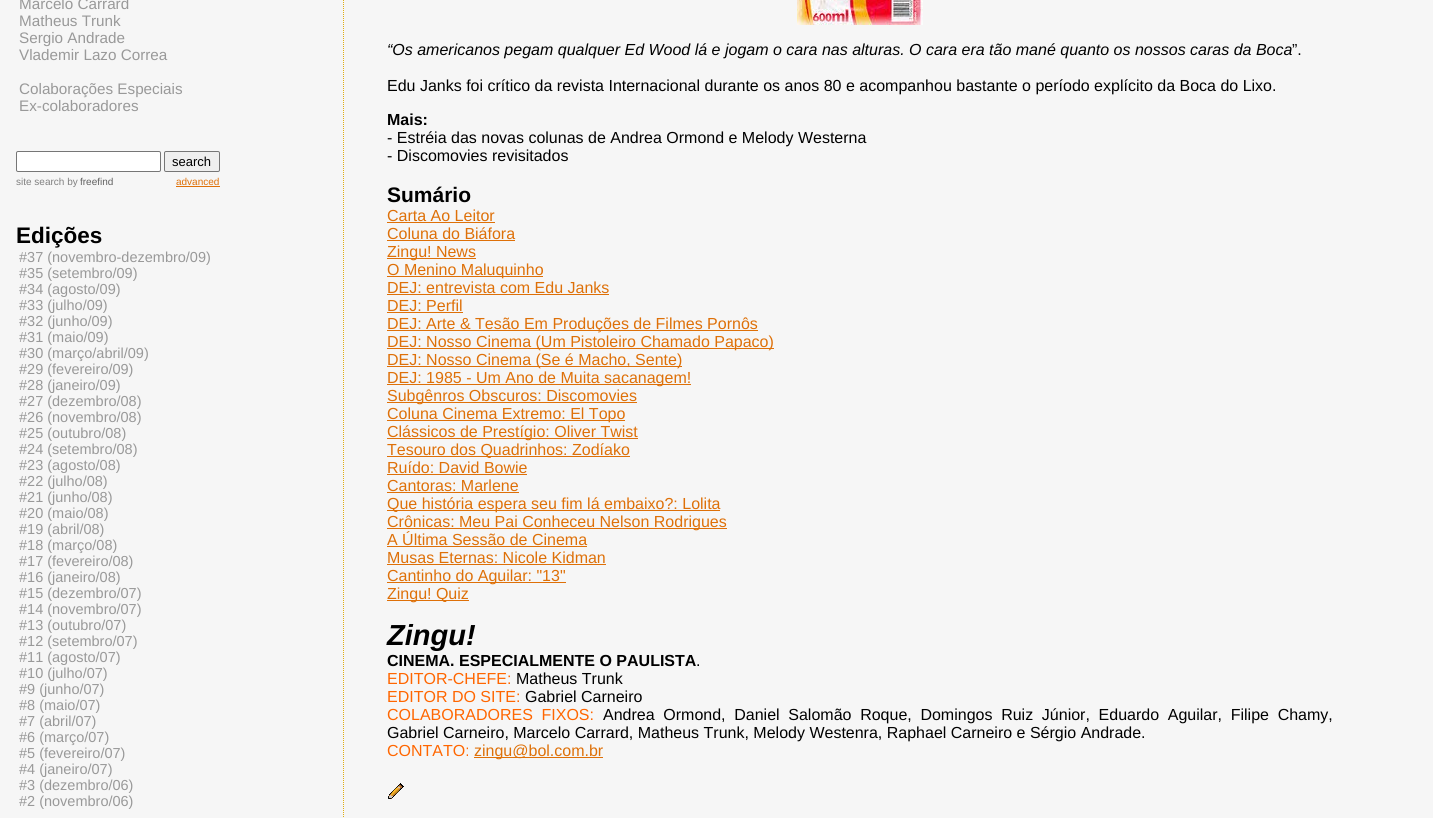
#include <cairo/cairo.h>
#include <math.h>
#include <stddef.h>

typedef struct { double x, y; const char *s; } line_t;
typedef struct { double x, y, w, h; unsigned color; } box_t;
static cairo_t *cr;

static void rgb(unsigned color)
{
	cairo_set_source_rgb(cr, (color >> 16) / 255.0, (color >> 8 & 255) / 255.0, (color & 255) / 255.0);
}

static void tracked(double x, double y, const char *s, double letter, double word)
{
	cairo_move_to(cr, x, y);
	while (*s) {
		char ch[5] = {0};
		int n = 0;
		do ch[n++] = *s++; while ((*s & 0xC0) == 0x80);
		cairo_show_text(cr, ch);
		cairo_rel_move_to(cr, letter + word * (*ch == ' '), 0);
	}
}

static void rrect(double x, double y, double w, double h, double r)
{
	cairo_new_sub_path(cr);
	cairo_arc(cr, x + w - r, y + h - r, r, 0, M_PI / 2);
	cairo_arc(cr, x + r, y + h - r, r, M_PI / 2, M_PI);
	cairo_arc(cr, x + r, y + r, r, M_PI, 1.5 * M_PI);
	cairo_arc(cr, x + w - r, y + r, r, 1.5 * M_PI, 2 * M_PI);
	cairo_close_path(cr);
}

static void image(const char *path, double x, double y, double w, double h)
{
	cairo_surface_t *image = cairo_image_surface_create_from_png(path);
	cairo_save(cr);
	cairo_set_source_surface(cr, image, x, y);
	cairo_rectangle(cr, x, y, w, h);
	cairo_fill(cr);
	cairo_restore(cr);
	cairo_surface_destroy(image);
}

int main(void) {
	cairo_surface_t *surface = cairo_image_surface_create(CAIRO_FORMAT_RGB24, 1433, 818);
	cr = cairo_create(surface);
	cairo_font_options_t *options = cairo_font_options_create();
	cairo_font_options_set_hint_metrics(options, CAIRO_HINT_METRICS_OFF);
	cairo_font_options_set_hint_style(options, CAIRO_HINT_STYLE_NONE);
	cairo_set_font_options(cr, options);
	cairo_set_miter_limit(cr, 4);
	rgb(0xf6f6f6);
	cairo_paint(cr);
	rgb(0xffffff);
	rrect(16.5, 151.5, 144, 20, 1.5);
	cairo_fill_preserve(cr);
	rgb(0x767676);
	cairo_set_line_width(cr, 1);
	cairo_stroke(cr);
	rgb(0xefefef);
	rrect(164.5, 151.5, 55, 20, 1.5);
	cairo_fill_preserve(cr);
	rgb(0x767676);
	cairo_stroke(cr);
	rgb(0xde7008);
	cairo_rectangle(cr, 176, 186, 44, 1);
	cairo_fill(cr);
	cairo_new_path(cr);
	cairo_move_to(cr, 343.5, -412);
	cairo_line_to(cr, 343.5, 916);
	rgb(0xe0ad12);
	cairo_set_dash(cr, (double[]){1, 1}, 2, 0);
	cairo_stroke(cr);
	image("img/1.png", 797, 0, 126, 25);
	{
		static const box_t items[] = {
			{387, 222, 108, 1, 0xde7008},
			{387, 240, 128, 1, 0xde7008},
			{387, 258, 89, 1, 0xde7008},
			{387, 276, 156, 1, 0xde7008},
			{387, 294, 222, 1, 0xde7008},
			{387, 312, 76, 1, 0xde7008},
			{387, 330, 371, 1, 0xde7008},
			{387, 348, 387, 1, 0xde7008},
			{387, 366, 295, 1, 0xde7008},
			{387, 384, 304, 1, 0xde7008},
			{387, 402, 250, 1, 0xde7008},
			{387, 420, 238, 1, 0xde7008},
			{387, 438, 251, 1, 0xde7008},
			{387, 456, 243, 1, 0xde7008},
			{387, 474, 140, 1, 0xde7008},
			{387, 492, 132, 1, 0xde7008},
			{387, 510, 333, 1, 0xde7008},
			{387, 528, 340, 1, 0xde7008},
			{387, 546, 200, 1, 0xde7008},
			{387, 564, 219, 1, 0xde7008},
			{387, 582, 179, 1, 0xde7008},
			{387, 600, 82, 1, 0xde7008},
			{474, 757, 129, 1, 0xde7008},
		};
		for (size_t i = 0; i < sizeof items / sizeof *items; i++) {
			rgb(items[i].color);
			cairo_rectangle(cr, items[i].x, items[i].y, items[i].w, items[i].h);
			cairo_fill(cr);
		}
	}
	image("img/2.png", 388, 783, 16, 16);
	cairo_select_font_face(cr, "Liberation Sans", CAIRO_FONT_SLANT_NORMAL, CAIRO_FONT_WEIGHT_NORMAL);
	cairo_set_font_size(cr, 15.25);
	rgb(0x999999);
	{
		static const line_t items[] = {
			{19, 9, "Marcelo Carrard"},
			{19, 26, "Matheus Trunk"},
			{19, 43, "Sergio Andrade"},
			{19, 60, "Vlademir Lazo Correa"},
			{19, 94, "Colaborações Especiais"},
			{19, 111, "Ex-colaboradores"},
		};
		for (size_t i = 0; i < sizeof items / sizeof *items; i++) {
			cairo_move_to(cr, items[i].x, items[i].y);
			cairo_show_text(cr, items[i].s);
		}
	}
	cairo_set_font_size(cr, 13);
	rgb(0x000000);
	cairo_move_to(cr, 172, 166);
	cairo_show_text(cr, "search");
	cairo_set_font_size(cr, 10);
	rgb(0x808080);
	cairo_move_to(cr, 16, 185);
	cairo_show_text(cr, "site search by");
	rgb(0x606060);
	cairo_move_to(cr, 80, 185);
	cairo_show_text(cr, "freefind");
	rgb(0xde7008);
	cairo_move_to(cr, 176, 185);
	cairo_show_text(cr, "advanced");
	cairo_select_font_face(cr, "Liberation Sans", CAIRO_FONT_SLANT_NORMAL, CAIRO_FONT_WEIGHT_BOLD);
	cairo_set_font_size(cr, 22.5);
	rgb(0x000000);
	cairo_move_to(cr, 16, 243);
	cairo_show_text(cr, "Edições");
	cairo_select_font_face(cr, "Liberation Sans", CAIRO_FONT_SLANT_NORMAL, CAIRO_FONT_WEIGHT_NORMAL);
	cairo_set_font_size(cr, 14.5);
	rgb(0x999999);
	{
		static const line_t items[] = {
			{19, 262, "#37 (novembro-dezembro/09)"},
			{19, 278, "#35 (setembro/09)"},
			{19, 294, "#34 (agosto/09)"},
			{19, 310, "#33 (julho/09)"},
			{19, 326, "#32 (junho/09)"},
			{19, 342, "#31 (maio/09)"},
			{19, 358, "#30 (março/abril/09)"},
			{19, 374, "#29 (fevereiro/09)"},
			{19, 390, "#28 (janeiro/09)"},
			{19, 406, "#27 (dezembro/08)"},
			{19, 422, "#26 (novembro/08)"},
			{19, 438, "#25 (outubro/08)"},
			{19, 454, "#24 (setembro/08)"},
			{19, 470, "#23 (agosto/08)"},
			{19, 486, "#22 (julho/08)"},
			{19, 502, "#21 (junho/08)"},
			{19, 518, "#20 (maio/08)"},
			{19, 534, "#19 (abril/08)"},
			{19, 550, "#18 (março/08)"},
			{19, 566, "#17 (fevereiro/08)"},
			{19, 582, "#16 (janeiro/08)"},
			{19, 598, "#15 (dezembro/07)"},
			{19, 614, "#14 (novembro/07)"},
			{19, 630, "#13 (outubro/07)"},
			{19, 646, "#12 (setembro/07)"},
			{19, 662, "#11 (agosto/07)"},
			{19, 678, "#10 (julho/07)"},
			{19, 694, "#9 (junho/07)"},
			{19, 710, "#8 (maio/07)"},
			{19, 726, "#7 (abril/07)"},
			{19, 742, "#6 (março/07)"},
			{19, 758, "#5 (fevereiro/07)"},
			{19, 774, "#4 (janeiro/07)"},
			{19, 790, "#3 (dezembro/06)"},
			{19, 806, "#2 (novembro/06)"},
		};
		for (size_t i = 0; i < sizeof items / sizeof *items; i++) {
			cairo_move_to(cr, items[i].x, items[i].y);
			cairo_show_text(cr, items[i].s);
		}
	}
	cairo_select_font_face(cr, "Liberation Sans", CAIRO_FONT_SLANT_ITALIC, CAIRO_FONT_WEIGHT_NORMAL);
	cairo_set_font_size(cr, 16);
	rgb(0x000000);
	cairo_move_to(cr, 387, 55);
	cairo_show_text(cr, "“Os americanos pegam qualquer Ed Wood lá e jogam o cara nas alturas. O cara era tão mané quanto os nossos caras da Boca");
	cairo_select_font_face(cr, "Liberation Sans", CAIRO_FONT_SLANT_NORMAL, CAIRO_FONT_WEIGHT_NORMAL);
	cairo_move_to(cr, 1292, 55);
	cairo_show_text(cr, "”.");
	cairo_move_to(cr, 387, 91);
	cairo_show_text(cr, "Edu Janks foi crítico da revista Internacional durante os anos 80 e acompanhou bastante o período explícito da Boca do Lixo.");
	cairo_select_font_face(cr, "Liberation Sans", CAIRO_FONT_SLANT_NORMAL, CAIRO_FONT_WEIGHT_BOLD);
	cairo_move_to(cr, 387, 125);
	cairo_show_text(cr, "Mais:");
	cairo_select_font_face(cr, "Liberation Sans", CAIRO_FONT_SLANT_NORMAL, CAIRO_FONT_WEIGHT_NORMAL);
	cairo_move_to(cr, 387, 143);
	cairo_show_text(cr, "- Estréia das novas colunas de Andrea Ormond e Melody Westerna");
	cairo_move_to(cr, 387, 161);
	cairo_show_text(cr, "- Discomovies revisitados");
	cairo_select_font_face(cr, "Liberation Sans", CAIRO_FONT_SLANT_NORMAL, CAIRO_FONT_WEIGHT_BOLD);
	cairo_set_font_size(cr, 21);
	cairo_move_to(cr, 387, 202);
	cairo_show_text(cr, "Sumário");
	cairo_select_font_face(cr, "Liberation Sans", CAIRO_FONT_SLANT_NORMAL, CAIRO_FONT_WEIGHT_NORMAL);
	cairo_set_font_size(cr, 16);
	rgb(0xde7008);
	{
		static const line_t items[] = {
			{387, 221, "Carta Ao Leitor"},
			{387, 239, "Coluna do Biáfora"},
			{387, 257, "Zingu! News"},
			{387, 275, "O Menino Maluquinho"},
			{387, 293, "DEJ: entrevista com Edu Janks"},
			{387, 311, "DEJ: Perfil"},
			{387, 329, "DEJ: Arte & Tesão Em Produções de Filmes Pornôs"},
			{387, 347, "DEJ: Nosso Cinema (Um Pistoleiro Chamado Papaco)"},
			{387, 365, "DEJ: Nosso Cinema (Se é Macho, Sente)"},
			{387, 383, "DEJ: 1985 - Um Ano de Muita sacanagem!"},
			{387, 401, "Subgênros Obscuros: Discomovies"},
			{387, 419, "Coluna Cinema Extremo: El Topo"},
			{387, 437, "Clássicos de Prestígio: Oliver Twist"},
			{387, 455, "Tesouro dos Quadrinhos: Zodíako"},
			{387, 473, "Ruído: David Bowie"},
			{387, 491, "Cantoras: Marlene"},
			{387, 509, "Que história espera seu fim lá embaixo?: Lolita"},
			{387, 527, "Crônicas: Meu Pai Conheceu Nelson Rodrigues"},
			{387, 545, "A Última Sessão de Cinema"},
			{387, 563, "Musas Eternas: Nicole Kidman"},
			{387, 581, "Cantinho do Aguilar: \"13\""},
			{387, 599, "Zingu! Quiz"},
		};
		for (size_t i = 0; i < sizeof items / sizeof *items; i++) {
			cairo_move_to(cr, items[i].x, items[i].y);
			cairo_show_text(cr, items[i].s);
		}
	}
	cairo_select_font_face(cr, "Liberation Sans", CAIRO_FONT_SLANT_ITALIC, CAIRO_FONT_WEIGHT_BOLD);
	cairo_set_font_size(cr, 29);
	rgb(0x000000);
	cairo_move_to(cr, 387, 645);
	cairo_show_text(cr, "Zingu!");
	cairo_select_font_face(cr, "Liberation Sans", CAIRO_FONT_SLANT_NORMAL, CAIRO_FONT_WEIGHT_BOLD);
	cairo_set_font_size(cr, 16);
	cairo_move_to(cr, 387, 666);
	cairo_show_text(cr, "CINEMA. ESPECIALMENTE O PAULISTA");
	cairo_select_font_face(cr, "Liberation Sans", CAIRO_FONT_SLANT_NORMAL, CAIRO_FONT_WEIGHT_NORMAL);
	cairo_move_to(cr, 696, 666);
	cairo_show_text(cr, ".");
	rgb(0xff6600);
	cairo_move_to(cr, 387, 684);
	cairo_show_text(cr, "EDITOR-CHEFE:");
	rgb(0x000000);
	cairo_move_to(cr, 516, 684);
	cairo_show_text(cr, "Matheus Trunk");
	rgb(0xff6600);
	cairo_move_to(cr, 387, 702);
	cairo_show_text(cr, "EDITOR DO SITE:");
	rgb(0x000000);
	cairo_move_to(cr, 525, 702);
	cairo_show_text(cr, "Gabriel Carneiro");
	rgb(0xff6600);
	tracked(387, 720, "COLABORADORES FIXOS:", 0, 4.25);
	rgb(0x000000);
	tracked(603, 720, "Andrea Ormond, Daniel Salomão Roque, Domingos Ruiz Júnior, Eduardo Aguilar, Filipe Chamy,", 0, 4.25);
	cairo_move_to(cr, 387, 738);
	cairo_show_text(cr, "Gabriel Carneiro, Marcelo Carrard, Matheus Trunk, Melody Westenra, Raphael Carneiro e Sérgio Andrade.");
	rgb(0xff6600);
	cairo_move_to(cr, 387, 756);
	cairo_show_text(cr, "CONTATO:");
	rgb(0xde7008);
	cairo_move_to(cr, 474, 756);
	cairo_show_text(cr, "zingu@bol.com.br");
	cairo_surface_write_to_png(surface, "page.png");
	cairo_font_options_destroy(options);
	cairo_destroy(cr);
	cairo_surface_destroy(surface);
	return 0;
}
